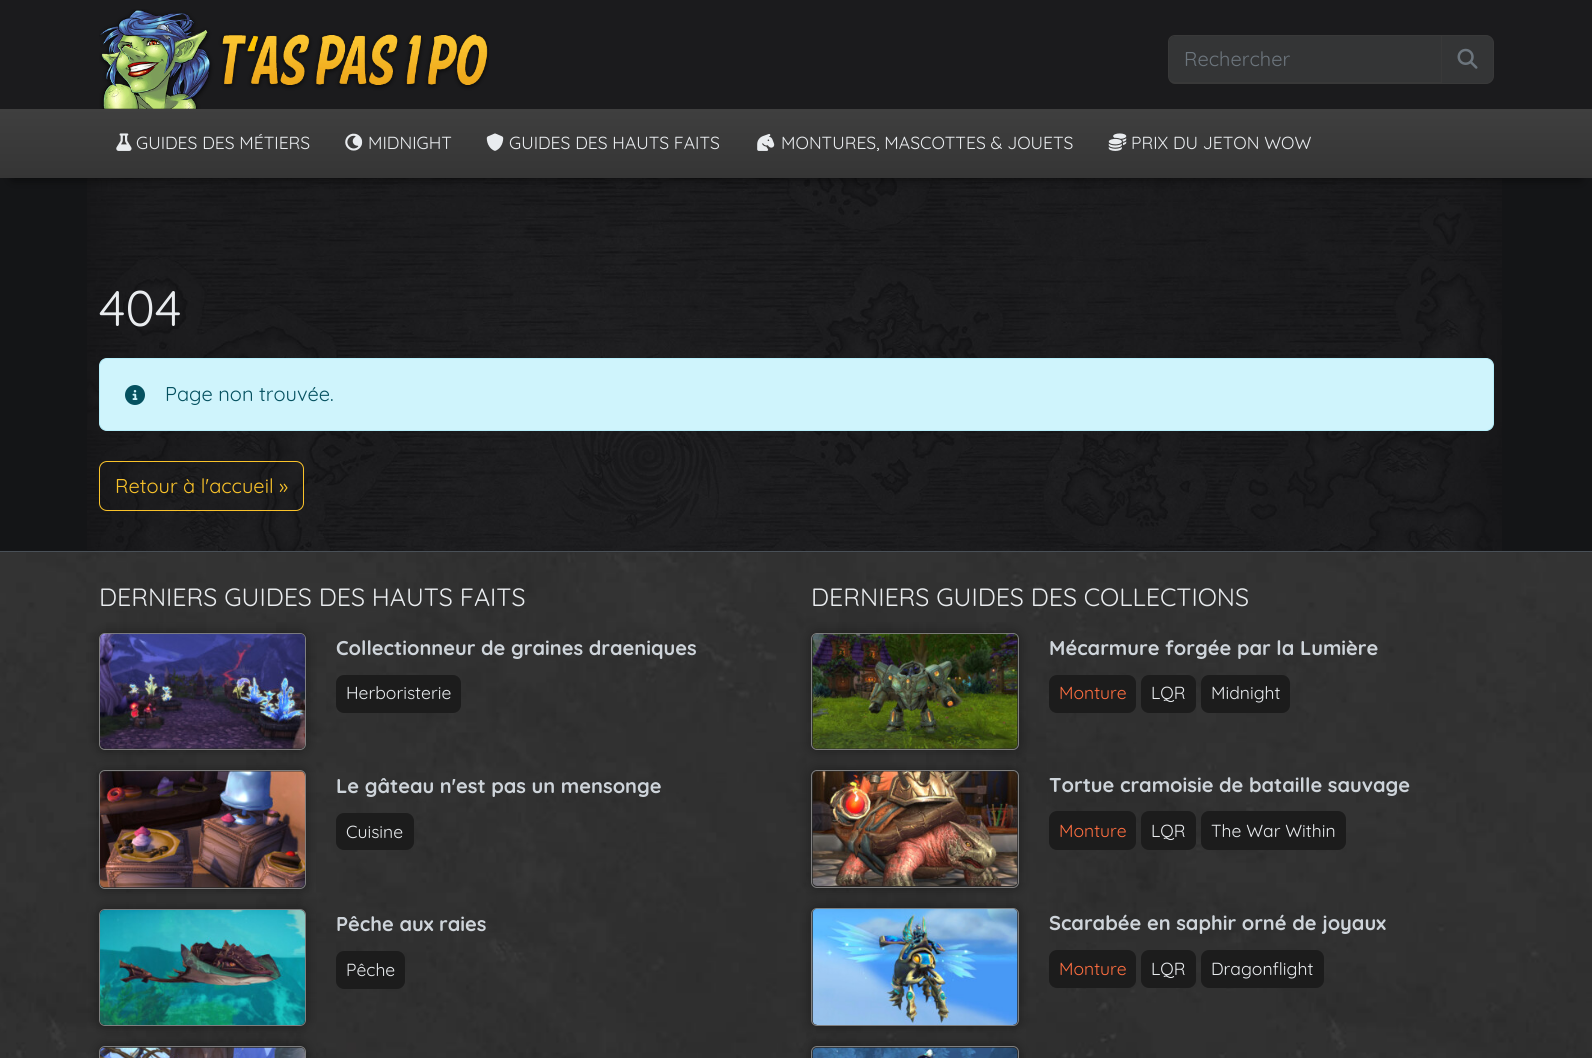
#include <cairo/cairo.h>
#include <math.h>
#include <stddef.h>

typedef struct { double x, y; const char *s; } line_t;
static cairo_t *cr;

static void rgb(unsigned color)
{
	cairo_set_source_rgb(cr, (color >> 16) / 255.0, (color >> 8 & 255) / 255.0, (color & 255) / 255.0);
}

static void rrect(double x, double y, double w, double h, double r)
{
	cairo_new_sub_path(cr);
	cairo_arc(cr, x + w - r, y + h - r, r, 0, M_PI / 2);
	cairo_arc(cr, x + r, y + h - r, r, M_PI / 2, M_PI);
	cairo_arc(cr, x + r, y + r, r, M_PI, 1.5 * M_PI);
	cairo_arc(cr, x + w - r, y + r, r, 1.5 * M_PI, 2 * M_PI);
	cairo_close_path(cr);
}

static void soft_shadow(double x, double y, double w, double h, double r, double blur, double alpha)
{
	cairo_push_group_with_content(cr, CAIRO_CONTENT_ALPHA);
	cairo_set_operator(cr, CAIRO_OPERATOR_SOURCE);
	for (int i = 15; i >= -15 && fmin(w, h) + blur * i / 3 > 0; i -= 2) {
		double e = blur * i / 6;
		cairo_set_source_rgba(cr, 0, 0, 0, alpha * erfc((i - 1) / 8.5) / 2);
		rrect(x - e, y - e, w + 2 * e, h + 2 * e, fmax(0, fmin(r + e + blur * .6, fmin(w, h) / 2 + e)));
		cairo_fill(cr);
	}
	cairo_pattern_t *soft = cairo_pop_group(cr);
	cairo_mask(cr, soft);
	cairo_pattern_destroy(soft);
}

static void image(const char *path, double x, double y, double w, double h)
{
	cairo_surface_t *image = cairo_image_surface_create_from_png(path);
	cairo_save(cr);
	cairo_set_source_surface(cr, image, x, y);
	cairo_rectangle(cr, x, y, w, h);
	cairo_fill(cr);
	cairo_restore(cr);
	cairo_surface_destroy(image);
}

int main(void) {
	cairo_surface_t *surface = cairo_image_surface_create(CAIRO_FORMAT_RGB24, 1592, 1058);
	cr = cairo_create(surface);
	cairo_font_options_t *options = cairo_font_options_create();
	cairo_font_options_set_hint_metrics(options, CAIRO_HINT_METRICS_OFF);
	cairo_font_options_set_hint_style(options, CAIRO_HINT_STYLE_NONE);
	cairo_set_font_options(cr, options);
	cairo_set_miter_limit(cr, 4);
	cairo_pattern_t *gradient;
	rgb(0x141517);
	cairo_paint(cr);
	image("img/1.png", 87, 178, 1415, 373);
	rgb(0x1b1b1d);
	cairo_rectangle(cr, 0, 0, 1592, 109);
	cairo_fill(cr);
	image("img/2.png", 99, 9, 390, 100);
	rgb(0x343536);
	cairo_new_path(cr);
	cairo_move_to(cr, 1175, 36);
	cairo_line_to(cr, 1443, 36);
	cairo_line_to(cr, 1443, 83);
	cairo_line_to(cr, 1175, 83);
	cairo_curve_to(cr, 1171.5, 83, 1169, 80.5, 1169, 77);
	cairo_line_to(cr, 1169, 42);
	cairo_curve_to(cr, 1169, 38.5, 1171.5, 36, 1175, 36);
	cairo_close_path(cr);
	cairo_fill(cr);
	rgb(0x393939);
	cairo_set_fill_rule(cr, CAIRO_FILL_RULE_EVEN_ODD);
	cairo_new_path(cr);
	cairo_move_to(cr, 1175, 35);
	cairo_line_to(cr, 1442, 35);
	cairo_line_to(cr, 1442, 84);
	cairo_line_to(cr, 1175, 84);
	cairo_curve_to(cr, 1171, 84, 1168, 80, 1168, 76);
	cairo_line_to(cr, 1168, 42);
	cairo_curve_to(cr, 1168, 38, 1171, 35, 1175, 35);
	cairo_close_path(cr);
	cairo_move_to(cr, 1175, 36);
	cairo_line_to(cr, 1442, 36);
	cairo_line_to(cr, 1442, 82);
	cairo_line_to(cr, 1175, 82);
	cairo_curve_to(cr, 1172, 82, 1169, 80, 1169, 76);
	cairo_line_to(cr, 1169, 42);
	cairo_curve_to(cr, 1169, 39, 1172, 36, 1175, 36);
	cairo_close_path(cr);
	cairo_fill(cr);
	rgb(0x343536);
	cairo_new_path(cr);
	cairo_move_to(cr, 1441.5, 35.5);
	cairo_line_to(cr, 1486, 35.5);
	cairo_curve_to(cr, 1490, 35.5, 1493.5, 39, 1493.5, 43);
	cairo_line_to(cr, 1493.5, 76);
	cairo_curve_to(cr, 1493.5, 80, 1490, 83.5, 1486, 83.5);
	cairo_line_to(cr, 1441.5, 83.5);
	cairo_close_path(cr);
	cairo_fill_preserve(cr);
	rgb(0x393939);
	cairo_set_line_width(cr, 1);
	cairo_stroke(cr);
	image("img/3.png", 1457, 48, 21, 21);
	rgb(0x000000);
	soft_shadow(13, 134, 1567, 44, 0, 6, 0.7);
	gradient = cairo_pattern_create_linear(796, 109, 796, 178);
	cairo_pattern_add_color_stop_rgba(gradient, 0, 0.247, 0.247, 0.247, 1);
	cairo_pattern_add_color_stop_rgba(gradient, 1, 0.208, 0.208, 0.208, 1);
	cairo_set_source(cr, gradient);
	cairo_pattern_destroy(gradient);
	cairo_rectangle(cr, 0, 109, 1592, 69);
	cairo_fill(cr);
	image("img/4.png", 116, 133, 16, 18);
	image("img/5.png", 345, 133, 18, 18);
	image("img/6.png", 486, 133, 18, 18);
	image("img/7.png", 757, 133, 18, 18);
	image("img/8.png", 1108, 133, 19, 18);
	rgb(0xcff4fc);
	rrect(99.5, 358.5, 1394, 72, 7.5);
	cairo_fill_preserve(cr);
	rgb(0xb6effb);
	cairo_stroke(cr);
	image("img/9.png", 125, 385, 20, 20);
	rrect(99.5, 461.5, 204, 49, 7.5);
	rgb(0xfac32a);
	cairo_stroke(cr);
	image("img/10.png", 0, 552, 1592, 506);
	rgb(0x495057);
	cairo_rectangle(cr, 0, 551, 1592, 1);
	cairo_fill(cr);
	rgb(0x000000);
	soft_shadow(99, 633, 207, 117, 6, 6, 0.4);
	rgb(0x2a2929);
	rrect(99.5, 633.5, 206, 116, 5.5);
	cairo_fill_preserve(cr);
	rgb(0x7f7f7f);
	cairo_stroke(cr);
	image("img/11.png", 100, 633, 205, 116);
	rgb(0x1c1c1c);
	rrect(336, 675, 125, 38, 8);
	cairo_fill(cr);
	rgb(0x000000);
	soft_shadow(99, 770, 207, 119, 6, 6, 0.4);
	rgb(0x2a2929);
	rrect(99.5, 770.5, 206, 118, 5.5);
	cairo_fill_preserve(cr);
	rgb(0x7f7f7f);
	cairo_stroke(cr);
	image("img/12.png", 100, 771, 205, 117);
	rgb(0x1c1c1c);
	rrect(336, 813, 78, 37, 8);
	cairo_fill(cr);
	rgb(0x000000);
	soft_shadow(99, 909, 207, 117, 6, 6, 0.4);
	rrect(99.5, 909.5, 206, 116, 5.5);
	rgb(0x7f7f7f);
	cairo_stroke(cr);
	image("img/13.png", 100, 910, 205, 115);
	rgb(0x1c1c1c);
	rrect(336, 951, 69, 38, 8);
	cairo_fill(cr);
	rgb(0x000000);
	soft_shadow(99, 1046, 207, 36, 6, 6, 0.4);
	rgb(0x2a2929);
	rrect(99.5, 1046.5, 206, 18, 5.5);
	cairo_fill_preserve(cr);
	rgb(0x7f7f7f);
	cairo_stroke(cr);
	image("img/14.png", 100, 1047, 205, 11);
	rgb(0x000000);
	soft_shadow(811, 633, 208, 117, 6, 6, 0.4);
	rgb(0x2a2929);
	rrect(811.5, 633.5, 207, 116, 5.5);
	cairo_fill_preserve(cr);
	rgb(0x7f7f7f);
	cairo_stroke(cr);
	image("img/15.png", 812, 633, 206, 116);
	rgb(0x1c1c1c);
	rrect(1049, 675, 87, 38, 8);
	cairo_fill(cr);
	rrect(1141, 675, 55, 38, 8);
	cairo_fill(cr);
	rrect(1201, 675, 89, 38, 8);
	cairo_fill(cr);
	rgb(0x000000);
	soft_shadow(811, 770, 208, 118, 6, 6, 0.4);
	rgb(0x2a2929);
	rrect(811.5, 770.5, 207, 117, 5.5);
	cairo_fill_preserve(cr);
	rgb(0x7f7f7f);
	cairo_stroke(cr);
	image("img/16.png", 812, 771, 206, 116);
	rgb(0x1c1c1c);
	rrect(1049, 811, 87, 39, 8);
	cairo_fill(cr);
	rrect(1141, 811, 55, 39, 8);
	cairo_fill(cr);
	rrect(1201, 811, 145, 39, 8);
	cairo_fill(cr);
	rgb(0x000000);
	soft_shadow(811, 908, 208, 118, 6, 6, 0.4);
	rgb(0x2a2929);
	rrect(811.5, 908.5, 207, 117, 5.5);
	cairo_fill_preserve(cr);
	rgb(0x7f7f7f);
	cairo_stroke(cr);
	image("img/17.png", 812, 908, 206, 117);
	rgb(0x1c1c1c);
	rrect(1049, 950, 87, 38, 8);
	cairo_fill(cr);
	rrect(1141, 950, 55, 38, 8);
	cairo_fill(cr);
	rrect(1201, 950, 123, 38, 8);
	cairo_fill(cr);
	rgb(0x000000);
	soft_shadow(811, 1046, 208, 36, 6, 6, 0.4);
	rgb(0x2a2929);
	rrect(811.5, 1046.5, 207, 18, 5.5);
	cairo_fill_preserve(cr);
	rgb(0x7f7f7f);
	cairo_stroke(cr);
	image("img/18.png", 812, 1047, 206, 11);
	cairo_select_font_face(cr, "Quicksand", CAIRO_FONT_SLANT_NORMAL, CAIRO_FONT_WEIGHT_NORMAL);
	cairo_set_font_size(cr, 20);
	rgb(0x6c757d);
	cairo_move_to(cr, 1184, 66);
	cairo_show_text(cr, "Rechercher");
	cairo_set_font_size(cr, 17.5);
	rgb(0xe9ecef);
	{
		static const line_t items[] = {
			{136, 149, "GUIDES DES MÉTIERS"},
			{368, 149, "MIDNIGHT"},
			{509, 149, "GUIDES DES HAUTS FAITS"},
			{781, 149, "MONTURES, MASCOTTES & JOUETS"},
			{1131, 149, "PRIX DU JETON WOW"},
		};
		for (size_t i = 0; i < sizeof items / sizeof *items; i++) {
			cairo_move_to(cr, items[i].x, items[i].y);
			cairo_show_text(cr, items[i].s);
		}
	}
	cairo_set_font_size(cr, 50);
	cairo_move_to(cr, 99, 326);
	cairo_show_text(cr, "404");
	cairo_set_font_size(cr, 20);
	rgb(0x055160);
	cairo_move_to(cr, 165, 401);
	cairo_show_text(cr, "Page non trouvée.");
	rgb(0xfac32a);
	cairo_move_to(cr, 115, 493);
	cairo_show_text(cr, "Retour à l'accueil »");
	cairo_set_font_size(cr, 25);
	rgb(0xe9ecef);
	cairo_move_to(cr, 99, 606);
	cairo_show_text(cr, "DERNIERS GUIDES DES HAUTS FAITS");
	cairo_select_font_face(cr, "Quicksand", CAIRO_FONT_SLANT_NORMAL, CAIRO_FONT_WEIGHT_BOLD);
	cairo_set_font_size(cr, 20);
	rgb(0xced4da);
	cairo_move_to(cr, 336, 655);
	cairo_show_text(cr, "Collectionneur de graines draeniques");
	cairo_select_font_face(cr, "Quicksand", CAIRO_FONT_SLANT_NORMAL, CAIRO_FONT_WEIGHT_NORMAL);
	cairo_set_font_size(cr, 17.5);
	rgb(0xe9ecef);
	cairo_move_to(cr, 346, 699);
	cairo_show_text(cr, "Herboristerie");
	cairo_select_font_face(cr, "Quicksand", CAIRO_FONT_SLANT_NORMAL, CAIRO_FONT_WEIGHT_BOLD);
	cairo_set_font_size(cr, 20);
	rgb(0xced4da);
	cairo_move_to(cr, 336, 793);
	cairo_show_text(cr, "Le gâteau n'est pas un mensonge");
	cairo_select_font_face(cr, "Quicksand", CAIRO_FONT_SLANT_NORMAL, CAIRO_FONT_WEIGHT_NORMAL);
	cairo_set_font_size(cr, 17.5);
	rgb(0xe9ecef);
	cairo_move_to(cr, 346, 838);
	cairo_show_text(cr, "Cuisine");
	cairo_select_font_face(cr, "Quicksand", CAIRO_FONT_SLANT_NORMAL, CAIRO_FONT_WEIGHT_BOLD);
	cairo_set_font_size(cr, 20);
	rgb(0xced4da);
	cairo_move_to(cr, 336, 931);
	cairo_show_text(cr, "Pêche aux raies");
	cairo_select_font_face(cr, "Quicksand", CAIRO_FONT_SLANT_NORMAL, CAIRO_FONT_WEIGHT_NORMAL);
	cairo_set_font_size(cr, 17.5);
	rgb(0xe9ecef);
	cairo_move_to(cr, 346, 976);
	cairo_show_text(cr, "Pêche");
	cairo_set_font_size(cr, 25);
	cairo_move_to(cr, 811, 606);
	cairo_show_text(cr, "DERNIERS GUIDES DES COLLECTIONS");
	cairo_select_font_face(cr, "Quicksand", CAIRO_FONT_SLANT_NORMAL, CAIRO_FONT_WEIGHT_BOLD);
	cairo_set_font_size(cr, 20);
	rgb(0xced4da);
	cairo_move_to(cr, 1049, 655);
	cairo_show_text(cr, "Mécarmure forgée par la Lumière");
	cairo_select_font_face(cr, "Quicksand", CAIRO_FONT_SLANT_NORMAL, CAIRO_FONT_WEIGHT_NORMAL);
	cairo_set_font_size(cr, 17.5);
	rgb(0xff6e40);
	cairo_move_to(cr, 1059, 699);
	cairo_show_text(cr, "Monture");
	rgb(0xe9ecef);
	cairo_move_to(cr, 1151, 699);
	cairo_show_text(cr, "LQR");
	cairo_move_to(cr, 1211, 699);
	cairo_show_text(cr, "Midnight");
	cairo_select_font_face(cr, "Quicksand", CAIRO_FONT_SLANT_NORMAL, CAIRO_FONT_WEIGHT_BOLD);
	cairo_set_font_size(cr, 20);
	rgb(0xced4da);
	cairo_move_to(cr, 1049, 792);
	cairo_show_text(cr, "Tortue cramoisie de bataille sauvage");
	cairo_select_font_face(cr, "Quicksand", CAIRO_FONT_SLANT_NORMAL, CAIRO_FONT_WEIGHT_NORMAL);
	cairo_set_font_size(cr, 17.5);
	rgb(0xff6e40);
	cairo_move_to(cr, 1059, 837);
	cairo_show_text(cr, "Monture");
	rgb(0xe9ecef);
	cairo_move_to(cr, 1151, 837);
	cairo_show_text(cr, "LQR");
	cairo_move_to(cr, 1211, 837);
	cairo_show_text(cr, "The War Within");
	cairo_select_font_face(cr, "Quicksand", CAIRO_FONT_SLANT_NORMAL, CAIRO_FONT_WEIGHT_BOLD);
	cairo_set_font_size(cr, 20);
	rgb(0xced4da);
	cairo_move_to(cr, 1049, 930);
	cairo_show_text(cr, "Scarabée en saphir orné de joyaux");
	cairo_select_font_face(cr, "Quicksand", CAIRO_FONT_SLANT_NORMAL, CAIRO_FONT_WEIGHT_NORMAL);
	cairo_set_font_size(cr, 17.5);
	rgb(0xff6e40);
	cairo_move_to(cr, 1059, 975);
	cairo_show_text(cr, "Monture");
	rgb(0xe9ecef);
	cairo_move_to(cr, 1151, 975);
	cairo_show_text(cr, "LQR");
	cairo_move_to(cr, 1211, 975);
	cairo_show_text(cr, "Dragonflight");
	cairo_surface_write_to_png(surface, "page.png");
	cairo_font_options_destroy(options);
	cairo_destroy(cr);
	cairo_surface_destroy(surface);
	return 0;
}
